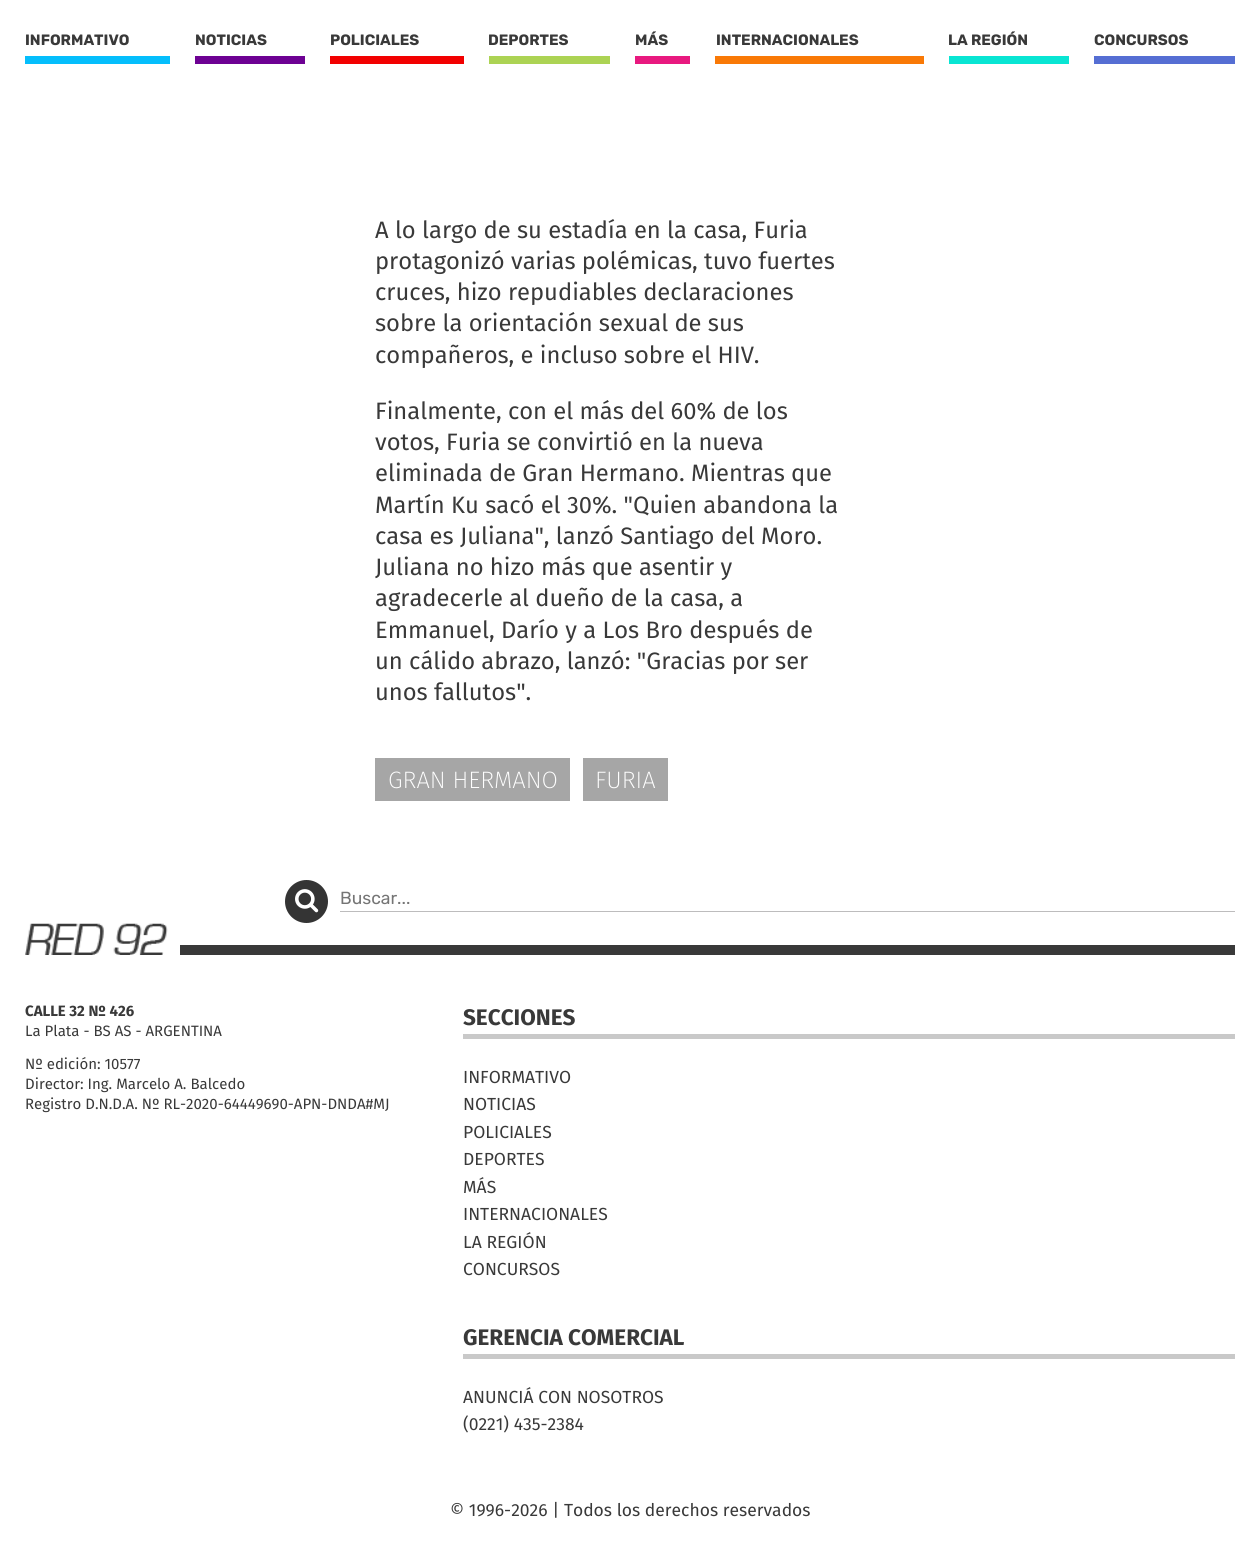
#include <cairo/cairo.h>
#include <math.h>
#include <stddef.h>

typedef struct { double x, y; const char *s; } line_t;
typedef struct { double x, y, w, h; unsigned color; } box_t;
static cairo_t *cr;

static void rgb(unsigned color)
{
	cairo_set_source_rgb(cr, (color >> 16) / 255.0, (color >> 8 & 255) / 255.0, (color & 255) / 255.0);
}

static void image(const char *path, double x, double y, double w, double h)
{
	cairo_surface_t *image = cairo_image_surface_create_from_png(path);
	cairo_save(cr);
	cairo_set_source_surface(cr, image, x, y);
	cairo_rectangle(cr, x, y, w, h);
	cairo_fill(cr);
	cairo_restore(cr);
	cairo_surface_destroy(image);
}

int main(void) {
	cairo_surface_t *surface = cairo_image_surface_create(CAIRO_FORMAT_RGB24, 1259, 1546);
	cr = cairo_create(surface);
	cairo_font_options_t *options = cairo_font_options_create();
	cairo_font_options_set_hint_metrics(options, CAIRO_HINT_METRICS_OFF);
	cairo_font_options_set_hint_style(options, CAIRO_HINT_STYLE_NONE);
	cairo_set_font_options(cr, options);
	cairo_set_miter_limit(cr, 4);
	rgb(0xffffff);
	cairo_paint(cr);
	{
		static const box_t items[] = {
			{25, 56, 145, 8, 0x05befc},
			{195, 56, 110, 8, 0x6d0193},
			{330, 56, 134, 8, 0xf20000},
			{489, 56, 121, 8, 0xacd354},
			{635, 56, 55, 8, 0xe8197f},
			{715, 56, 209, 8, 0xf97906},
			{949, 56, 120, 8, 0x09e5d3},
			{1094, 56, 141, 8, 0x556ed3},
			{375, 758, 195, 43, 0xa6a6a6},
			{583, 758, 85, 43, 0xa6a6a6},
			{180, 945, 1055, 10, 0x393939},
		};
		for (size_t i = 0; i < sizeof items / sizeof *items; i++) {
			rgb(items[i].color);
			cairo_rectangle(cr, items[i].x, items[i].y, items[i].w, items[i].h);
			cairo_fill(cr);
		}
	}
	rgb(0x343434);
	cairo_arc(cr, 306.5, 901.5, 21.5, 0, 2 * M_PI);
	cairo_fill(cr);
	image("img/1.png", 295, 889, 24, 24);
	rgb(0xbdbcbd);
	cairo_rectangle(cr, 340, 911, 895, 1);
	cairo_fill(cr);
	image("img/2.png", 25, 923, 143, 32);
	rgb(0xc9c9c9);
	cairo_rectangle(cr, 463, 1034, 772, 5);
	cairo_fill(cr);
	cairo_rectangle(cr, 463, 1354, 772, 5);
	cairo_fill(cr);
	cairo_select_font_face(cr, "Rubik", CAIRO_FONT_SLANT_NORMAL, CAIRO_FONT_WEIGHT_BOLD);
	cairo_set_font_size(cr, 15);
	rgb(0x393939);
	{
		static const line_t items[] = {
			{25, 45, "INFORMATIVO"},
			{195, 45, "NOTICIAS"},
			{330, 45, "POLICIALES"},
			{488, 45, "DEPORTES"},
			{635, 45, "MÁS"},
			{716, 45, "INTERNACIONALES"},
			{948, 45, "LA REGIÓN"},
			{1094, 45, "CONCURSOS"},
		};
		for (size_t i = 0; i < sizeof items / sizeof *items; i++) {
			cairo_move_to(cr, items[i].x, items[i].y);
			cairo_show_text(cr, items[i].s);
		}
	}
	cairo_select_font_face(cr, "Fira Sans", CAIRO_FONT_SLANT_NORMAL, CAIRO_FONT_WEIGHT_NORMAL);
	cairo_set_font_size(cr, 23.75);
	{
		static const line_t items[] = {
			{375, 238, "A lo largo de su estadía en la casa, Furia"},
			{375, 269, "protagonizó varias polémicas, tuvo fuertes"},
			{375, 300, "cruces, hizo repudiables declaraciones"},
			{375, 331, "sobre la orientación sexual de sus"},
			{375, 363, "compañeros, e incluso sobre el HIV."},
			{375, 419, "Finalmente, con el más del 60% de los"},
			{375, 450, "votos, Furia se convirtió en la nueva"},
			{375, 481, "eliminada de Gran Hermano. Mientras que"},
			{375, 513, "Martín Ku sacó el 30%. \"Quien abandona la"},
			{375, 544, "casa es Juliana\", lanzó Santiago del Moro."},
			{375, 575, "Juliana no hizo más que asentir y"},
			{375, 606, "agradecerle al dueño de la casa, a"},
			{375, 638, "Emmanuel, Darío y a Los Bro después de"},
			{375, 669, "un cálido abrazo, lanzó: \"Gracias por ser"},
			{375, 700, "unos fallutos\"."},
		};
		for (size_t i = 0; i < sizeof items / sizeof *items; i++) {
			cairo_move_to(cr, items[i].x, items[i].y);
			cairo_show_text(cr, items[i].s);
		}
	}
	cairo_select_font_face(cr, "Fira Sans ExtraLight", CAIRO_FONT_SLANT_NORMAL, CAIRO_FONT_WEIGHT_NORMAL);
	rgb(0xffffff);
	cairo_move_to(cr, 388, 788);
	cairo_show_text(cr, "GRAN HERMANO");
	cairo_move_to(cr, 595, 788);
	cairo_show_text(cr, "FURIA");
	cairo_select_font_face(cr, "Rubik", CAIRO_FONT_SLANT_NORMAL, CAIRO_FONT_WEIGHT_NORMAL);
	cairo_set_font_size(cr, 17.5);
	rgb(0x757575);
	cairo_move_to(cr, 340, 904);
	cairo_show_text(cr, "Buscar...");
	cairo_select_font_face(cr, "Fira Sans", CAIRO_FONT_SLANT_NORMAL, CAIRO_FONT_WEIGHT_BOLD);
	cairo_set_font_size(cr, 15);
	rgb(0x393939);
	cairo_move_to(cr, 25, 1016);
	cairo_show_text(cr, "CALLE 32 Nº 426");
	cairo_select_font_face(cr, "Fira Sans", CAIRO_FONT_SLANT_NORMAL, CAIRO_FONT_WEIGHT_NORMAL);
	{
		static const line_t items[] = {
			{25, 1036, "La Plata - BS AS - ARGENTINA"},
			{25, 1069, "Nº edición: 10577"},
			{25, 1089, "Director: Ing. Marcelo A. Balcedo"},
			{25, 1109, "Registro D.N.D.A. Nº RL-2020-64449690-APN-DNDA#MJ"},
		};
		for (size_t i = 0; i < sizeof items / sizeof *items; i++) {
			cairo_move_to(cr, items[i].x, items[i].y);
			cairo_show_text(cr, items[i].s);
		}
	}
	cairo_select_font_face(cr, "Fira Sans", CAIRO_FONT_SLANT_NORMAL, CAIRO_FONT_WEIGHT_BOLD);
	cairo_set_font_size(cr, 22.5);
	cairo_move_to(cr, 463, 1025);
	cairo_show_text(cr, "SECCIONES");
	cairo_select_font_face(cr, "Fira Sans", CAIRO_FONT_SLANT_NORMAL, CAIRO_FONT_WEIGHT_NORMAL);
	cairo_set_font_size(cr, 17.5);
	{
		static const line_t items[] = {
			{463, 1083, "INFORMATIVO"},
			{463, 1110, "NOTICIAS"},
			{463, 1138, "POLICIALES"},
			{463, 1165, "DEPORTES"},
			{463, 1193, "MÁS"},
			{463, 1220, "INTERNACIONALES"},
			{463, 1248, "LA REGIÓN"},
			{463, 1275, "CONCURSOS"},
		};
		for (size_t i = 0; i < sizeof items / sizeof *items; i++) {
			cairo_move_to(cr, items[i].x, items[i].y);
			cairo_show_text(cr, items[i].s);
		}
	}
	cairo_select_font_face(cr, "Fira Sans", CAIRO_FONT_SLANT_NORMAL, CAIRO_FONT_WEIGHT_BOLD);
	cairo_set_font_size(cr, 22.5);
	cairo_move_to(cr, 463, 1345);
	cairo_show_text(cr, "GERENCIA COMERCIAL");
	cairo_select_font_face(cr, "Fira Sans", CAIRO_FONT_SLANT_NORMAL, CAIRO_FONT_WEIGHT_NORMAL);
	cairo_set_font_size(cr, 17.5);
	{
		static const line_t items[] = {
			{463, 1403, "ANUNCIÁ CON NOSOTROS"},
			{463, 1430, "(0221) 435-2384"},
			{450, 1516, "© 1996-2026 | Todos los derechos reservados"},
		};
		for (size_t i = 0; i < sizeof items / sizeof *items; i++) {
			cairo_move_to(cr, items[i].x, items[i].y);
			cairo_show_text(cr, items[i].s);
		}
	}
	cairo_surface_write_to_png(surface, "page.png");
	cairo_font_options_destroy(options);
	cairo_destroy(cr);
	cairo_surface_destroy(surface);
	return 0;
}
